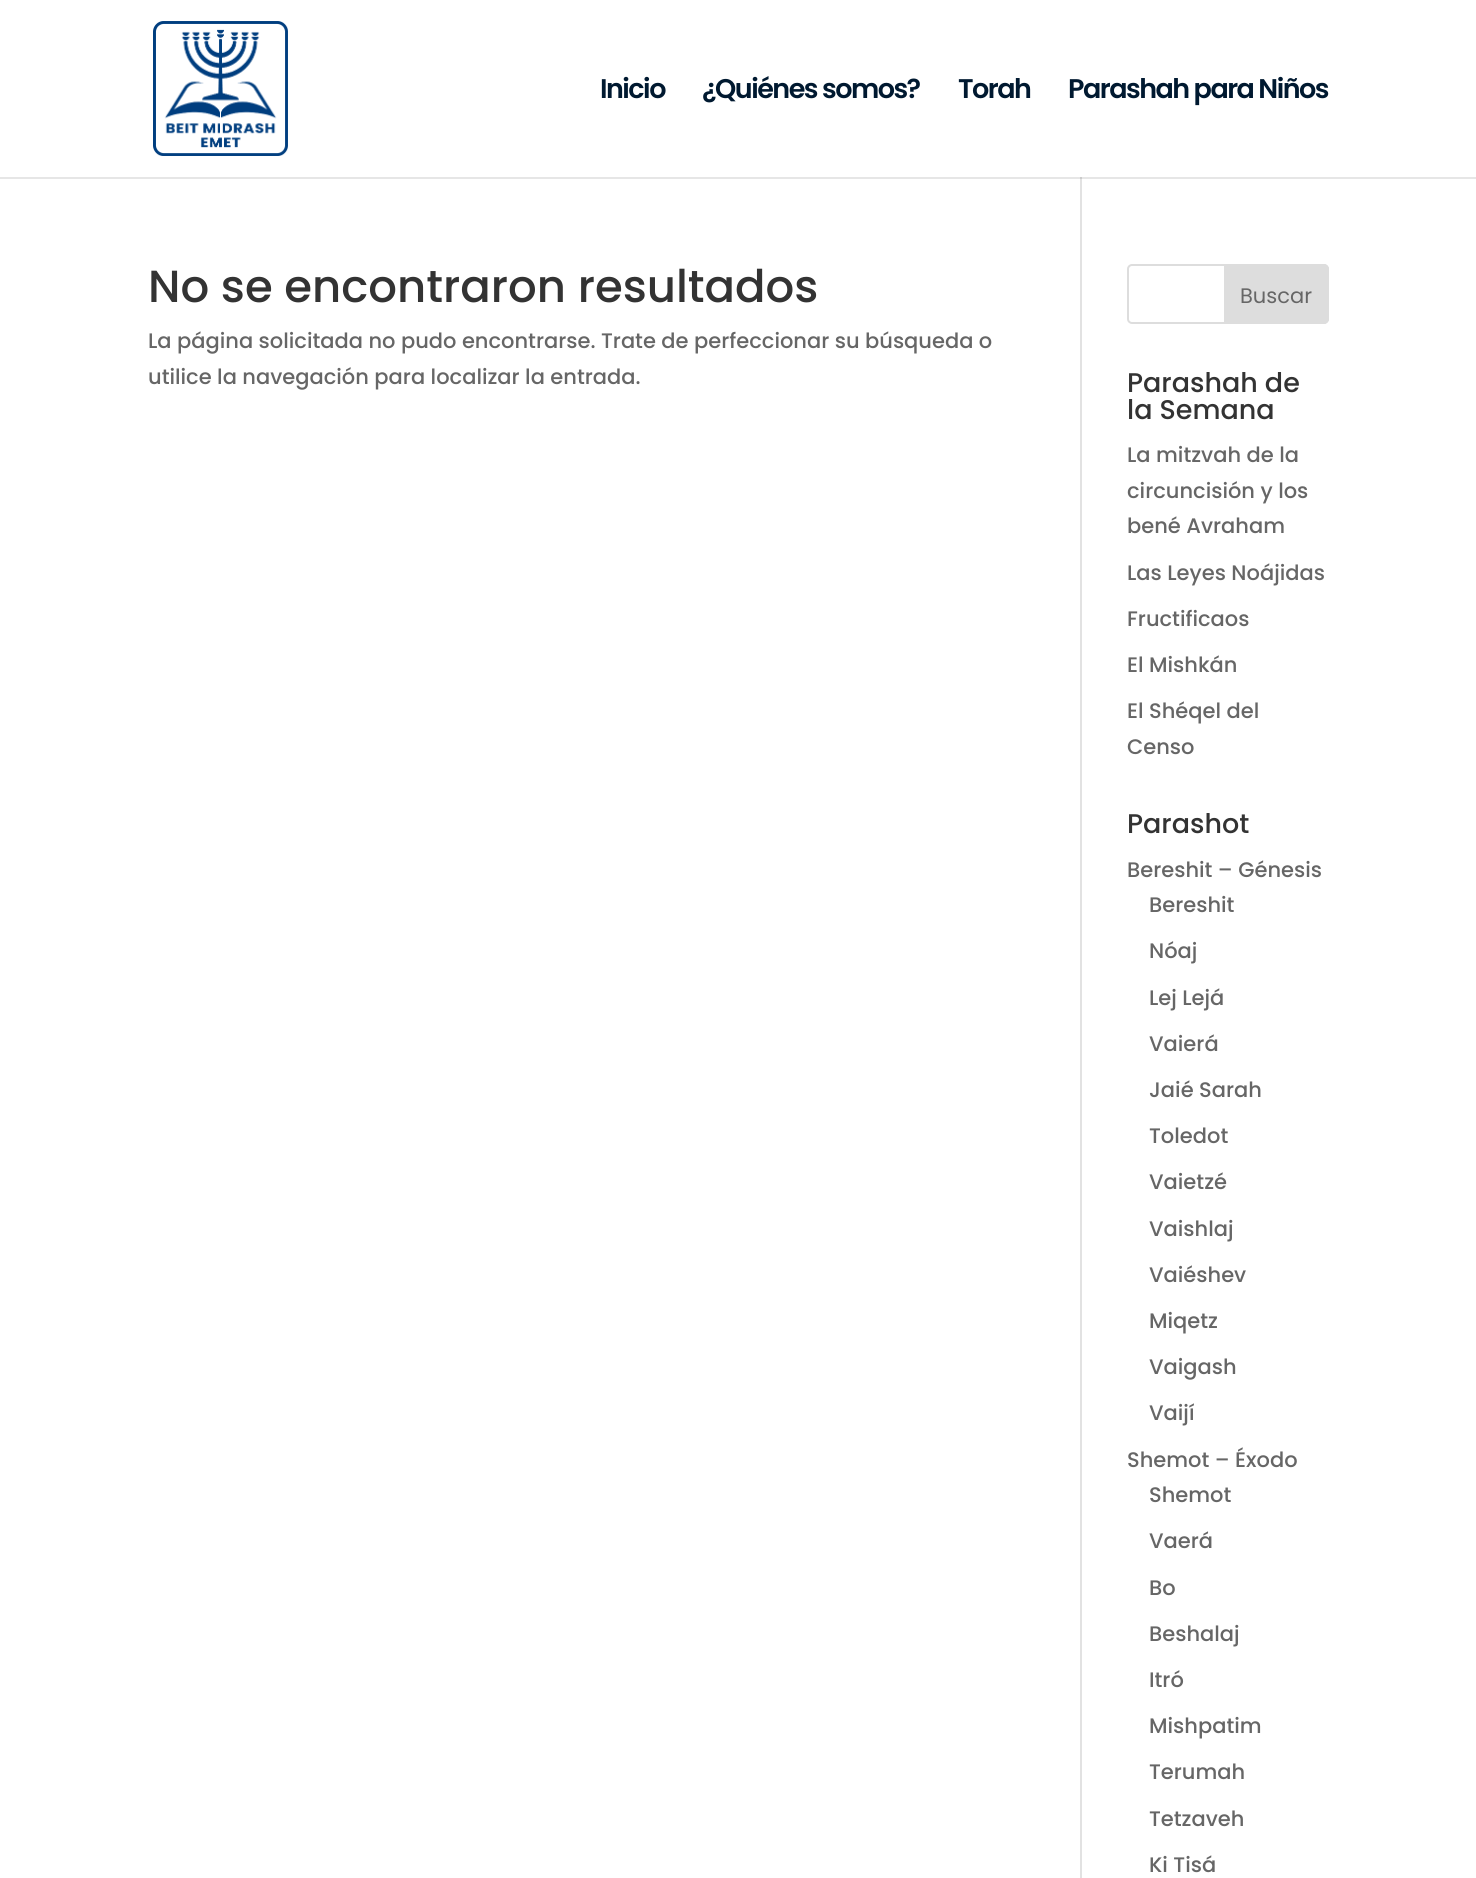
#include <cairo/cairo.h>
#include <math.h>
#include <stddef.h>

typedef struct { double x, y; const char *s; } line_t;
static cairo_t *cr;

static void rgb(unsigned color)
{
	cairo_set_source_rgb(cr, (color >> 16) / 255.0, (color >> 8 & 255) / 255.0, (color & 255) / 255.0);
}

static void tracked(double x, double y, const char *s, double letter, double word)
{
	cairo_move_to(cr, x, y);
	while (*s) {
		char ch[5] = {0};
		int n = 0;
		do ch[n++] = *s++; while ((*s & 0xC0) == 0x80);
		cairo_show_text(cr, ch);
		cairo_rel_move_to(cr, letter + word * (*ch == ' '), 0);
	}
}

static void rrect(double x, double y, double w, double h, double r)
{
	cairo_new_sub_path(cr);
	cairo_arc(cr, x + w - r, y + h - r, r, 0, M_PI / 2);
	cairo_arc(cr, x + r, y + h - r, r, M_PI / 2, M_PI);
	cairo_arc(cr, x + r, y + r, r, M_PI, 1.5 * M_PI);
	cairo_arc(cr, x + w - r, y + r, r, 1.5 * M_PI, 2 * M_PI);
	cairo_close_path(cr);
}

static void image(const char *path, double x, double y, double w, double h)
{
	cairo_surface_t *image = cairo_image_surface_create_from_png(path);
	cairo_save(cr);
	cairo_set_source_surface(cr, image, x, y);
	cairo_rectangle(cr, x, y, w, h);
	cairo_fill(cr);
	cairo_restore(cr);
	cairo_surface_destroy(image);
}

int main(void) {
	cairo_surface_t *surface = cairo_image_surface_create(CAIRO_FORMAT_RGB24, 1476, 1878);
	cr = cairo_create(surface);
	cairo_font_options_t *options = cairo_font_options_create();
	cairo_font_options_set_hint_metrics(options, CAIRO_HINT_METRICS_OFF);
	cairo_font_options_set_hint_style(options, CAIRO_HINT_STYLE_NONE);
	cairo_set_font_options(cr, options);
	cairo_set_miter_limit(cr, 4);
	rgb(0xffffff);
	cairo_paint(cr);
	rgb(0xe6e6e6);
	cairo_rectangle(cr, 0, 177, 1476, 2);
	cairo_fill(cr);
	image("img/1.png", 153, 21, 135, 135);
	rgb(0xe2e2e2);
	cairo_rectangle(cr, 1080, 177, 2, 1701);
	cairo_fill(cr);
	rgb(0xcbcbcb);
	cairo_rectangle(cr, 1080, 177, 2, 2);
	cairo_fill(cr);
	rrect(1128, 265, 200, 58, 4);
	rgb(0xdddddd);
	cairo_stroke(cr);
	cairo_new_path(cr);
	cairo_move_to(cr, 1225, 265);
	cairo_line_to(cr, 1324, 265);
	cairo_curve_to(cr, 1326, 265, 1328, 267, 1328, 269);
	cairo_line_to(cr, 1328, 319);
	cairo_curve_to(cr, 1328, 321, 1326, 323, 1324, 323);
	cairo_line_to(cr, 1225, 323);
	cairo_close_path(cr);
	cairo_fill_preserve(cr);
	cairo_stroke(cr);
	cairo_select_font_face(cr, "Poppins SemiBold", CAIRO_FONT_SLANT_NORMAL, CAIRO_FONT_WEIGHT_NORMAL);
	cairo_set_font_size(cr, 27);
	rgb(0x001930);
	{
		static const line_t items[] = {
			{600, 98, "Inicio"},
			{702, 98, "¿Quiénes somos?"},
			{958, 98, "Torah"},
			{1068, 98, "Parashah para Niños"},
		};
		for (size_t i = 0; i < sizeof items / sizeof *items; i++) {
			tracked(items[i].x, items[i].y, items[i].s, -1.5, 0);
		}
	}
	cairo_select_font_face(cr, "Poppins Medium", CAIRO_FONT_SLANT_NORMAL, CAIRO_FONT_WEIGHT_NORMAL);
	cairo_set_font_size(cr, 45);
	rgb(0x333333);
	cairo_move_to(cr, 148, 302);
	cairo_show_text(cr, "No se encontraron resultados");
	cairo_set_font_size(cr, 21);
	rgb(0x666666);
	cairo_move_to(cr, 148, 348);
	cairo_show_text(cr, "La página solicitada no pudo encontrarse. Trate de perfeccionar su búsqueda o");
	cairo_move_to(cr, 148, 384);
	cairo_show_text(cr, "utilice la navegación para localizar la entrada.");
	cairo_select_font_face(cr, "Poppins", CAIRO_FONT_SLANT_NORMAL, CAIRO_FONT_WEIGHT_NORMAL);
	cairo_move_to(cr, 1240, 303);
	cairo_show_text(cr, "Buscar");
	cairo_select_font_face(cr, "Poppins Medium", CAIRO_FONT_SLANT_NORMAL, CAIRO_FONT_WEIGHT_NORMAL);
	cairo_set_font_size(cr, 27);
	rgb(0x333333);
	cairo_move_to(cr, 1127, 392);
	cairo_show_text(cr, "Parashah de");
	cairo_move_to(cr, 1127, 419);
	cairo_show_text(cr, "la Semana");
	cairo_set_font_size(cr, 21);
	rgb(0x666666);
	{
		static const line_t items[] = {
			{1127, 462, "La mitzvah de la"},
			{1127, 498, "circuncisión y los"},
			{1127, 533, "bené Avraham"},
			{1127, 580, "Las Leyes Noájidas"},
			{1127, 626, "Fructificaos"},
			{1127, 672, "El Mishkán"},
			{1127, 718, "El Shéqel del"},
			{1127, 754, "Censo"},
		};
		for (size_t i = 0; i < sizeof items / sizeof *items; i++) {
			cairo_move_to(cr, items[i].x, items[i].y);
			cairo_show_text(cr, items[i].s);
		}
	}
	cairo_set_font_size(cr, 27);
	rgb(0x333333);
	cairo_move_to(cr, 1127, 833);
	cairo_show_text(cr, "Parashot");
	cairo_set_font_size(cr, 21);
	rgb(0x666666);
	{
		static const line_t items[] = {
			{1127, 877, "Bereshit – Génesis"},
			{1149, 912, "Bereshit"},
			{1149, 958, "Nóaj"},
			{1149, 1005, "Lej Lejá"},
			{1149, 1051, "Vaierá"},
			{1149, 1097, "Jaié Sarah"},
			{1149, 1143, "Toledot"},
			{1149, 1189, "Vaietzé"},
			{1149, 1236, "Vaishlaj"},
			{1149, 1282, "Vaiéshev"},
			{1149, 1328, "Miqetz"},
			{1149, 1374, "Vaigash"},
			{1149, 1420, "Vaijí"},
			{1127, 1467, "Shemot – Éxodo"},
			{1149, 1502, "Shemot"},
			{1149, 1548, "Vaerá"},
			{1149, 1595, "Bo"},
			{1149, 1641, "Beshalaj"},
			{1149, 1687, "Itró"},
			{1149, 1733, "Mishpatim"},
			{1149, 1779, "Terumah"},
			{1149, 1826, "Tetzaveh"},
			{1149, 1872, "Ki Tisá"},
		};
		for (size_t i = 0; i < sizeof items / sizeof *items; i++) {
			cairo_move_to(cr, items[i].x, items[i].y);
			cairo_show_text(cr, items[i].s);
		}
	}
	cairo_surface_write_to_png(surface, "page.png");
	cairo_font_options_destroy(options);
	cairo_destroy(cr);
	cairo_surface_destroy(surface);
	return 0;
}
